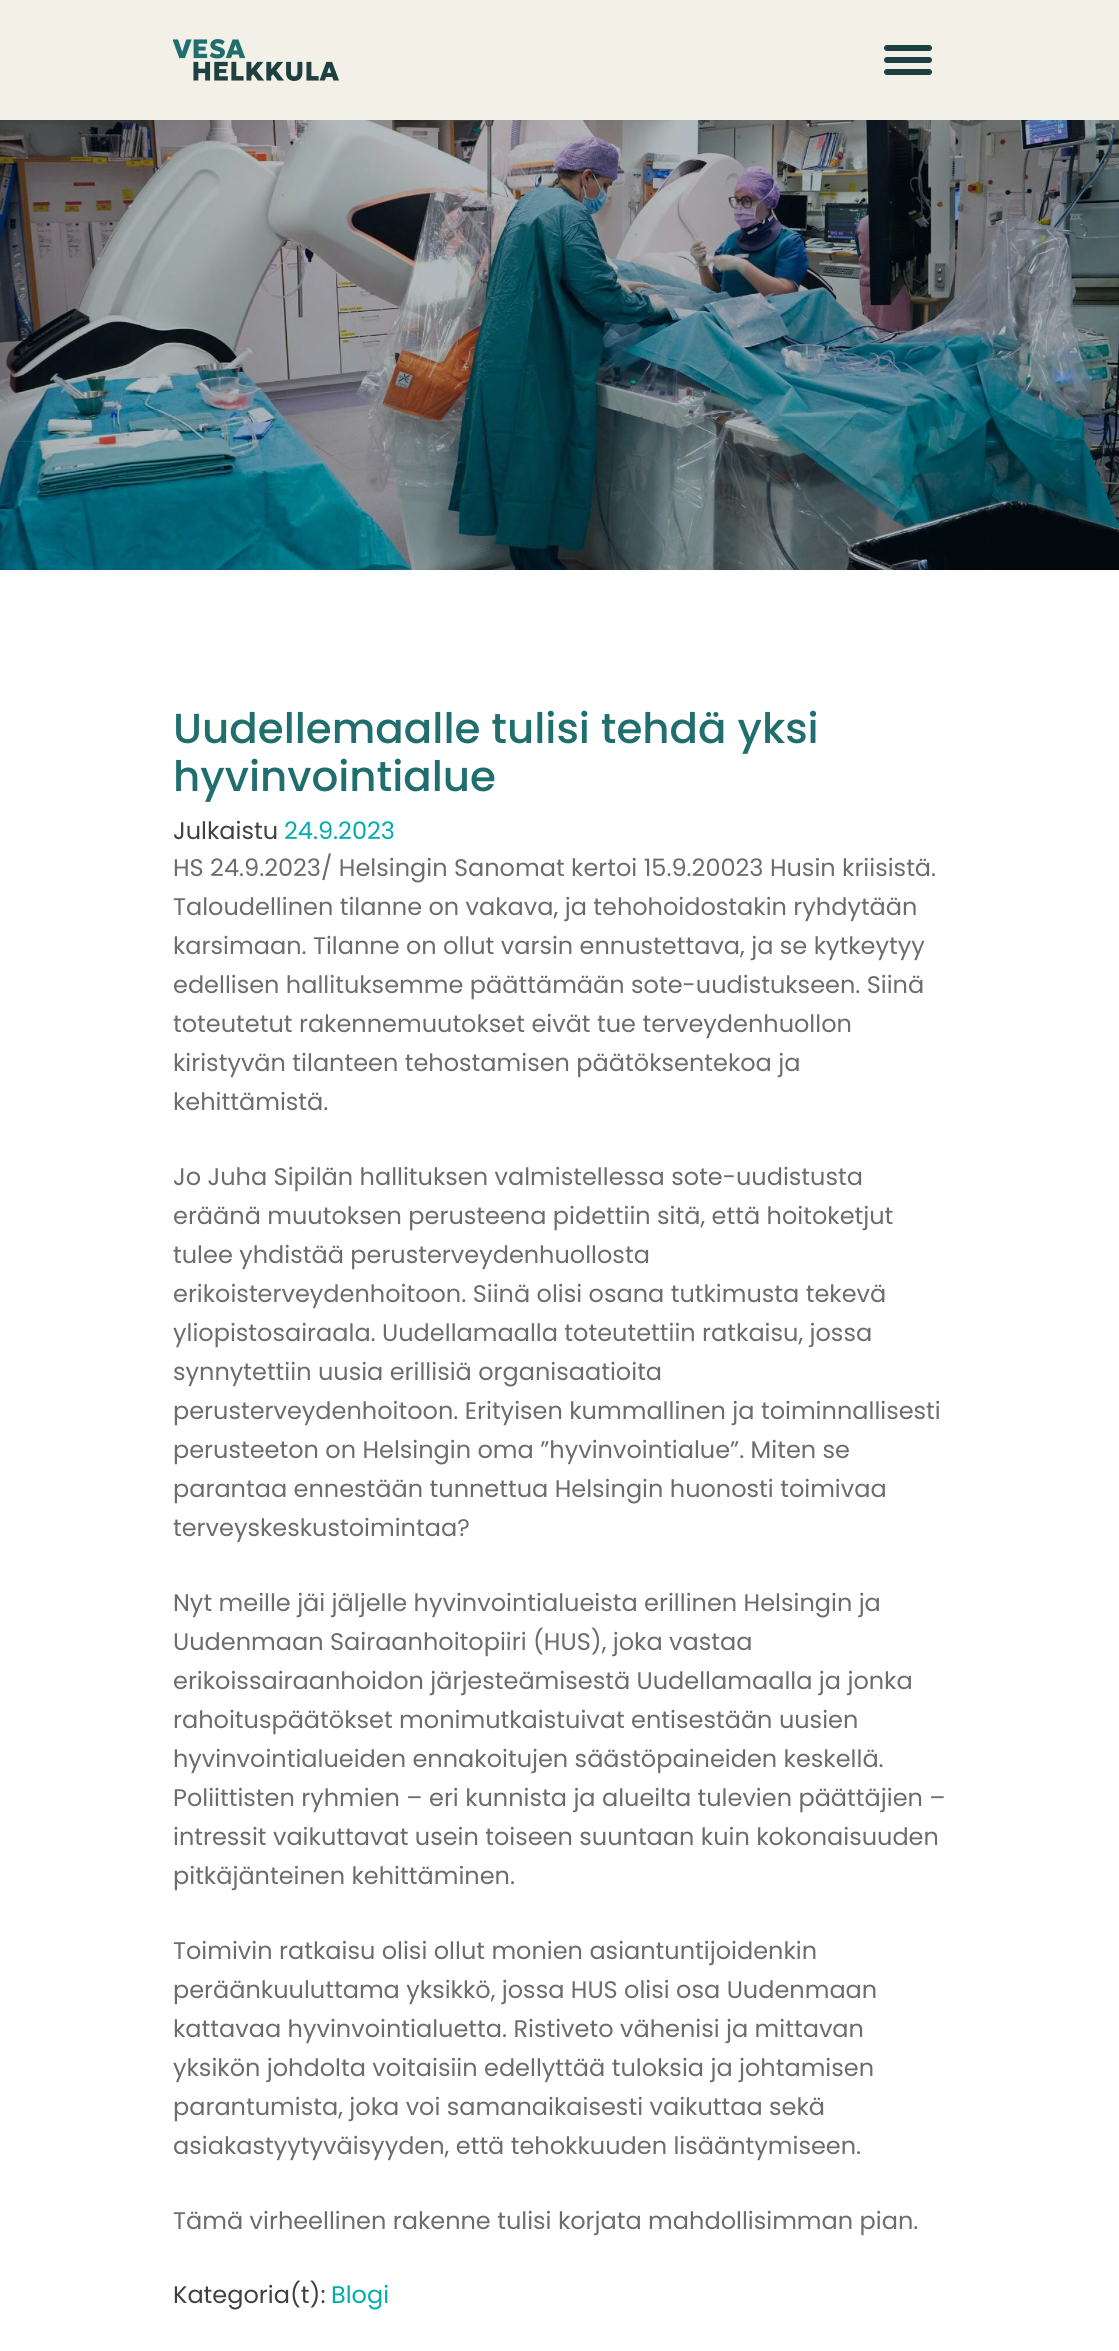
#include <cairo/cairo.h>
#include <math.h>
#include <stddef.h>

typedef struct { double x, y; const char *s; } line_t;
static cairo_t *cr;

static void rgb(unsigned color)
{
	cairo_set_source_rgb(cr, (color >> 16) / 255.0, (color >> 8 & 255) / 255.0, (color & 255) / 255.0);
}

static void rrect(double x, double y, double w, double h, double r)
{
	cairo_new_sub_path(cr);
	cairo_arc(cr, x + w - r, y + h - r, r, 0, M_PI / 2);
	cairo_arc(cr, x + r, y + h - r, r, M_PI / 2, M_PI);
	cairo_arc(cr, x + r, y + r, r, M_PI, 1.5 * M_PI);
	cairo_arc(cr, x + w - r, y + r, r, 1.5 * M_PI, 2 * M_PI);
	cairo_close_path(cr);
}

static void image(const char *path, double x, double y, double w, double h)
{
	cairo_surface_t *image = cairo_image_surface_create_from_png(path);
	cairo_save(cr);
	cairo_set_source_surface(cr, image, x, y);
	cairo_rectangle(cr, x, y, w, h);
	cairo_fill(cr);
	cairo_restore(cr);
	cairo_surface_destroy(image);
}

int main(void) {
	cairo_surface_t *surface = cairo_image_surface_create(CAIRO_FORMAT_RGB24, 1119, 2351);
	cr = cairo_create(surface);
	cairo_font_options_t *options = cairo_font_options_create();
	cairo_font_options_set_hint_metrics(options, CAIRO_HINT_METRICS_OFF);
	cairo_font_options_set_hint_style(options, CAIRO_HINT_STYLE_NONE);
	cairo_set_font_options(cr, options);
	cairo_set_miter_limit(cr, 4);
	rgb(0xffffff);
	cairo_paint(cr);
	rgb(0xf2f0e7);
	cairo_rectangle(cr, 0, 0, 1119, 120);
	cairo_fill(cr);
	image("img/1.png", 173, 39, 166, 42);
	rgb(0x1e4040);
	rrect(884, 45, 48, 6, 3);
	cairo_fill(cr);
	rrect(884, 57, 48, 6, 3);
	cairo_fill(cr);
	rrect(884, 69, 48, 6, 3);
	cairo_fill(cr);
	image("img/2.png", 0, 120, 1119, 450);
	cairo_select_font_face(cr, "Poppins Medium", CAIRO_FONT_SLANT_NORMAL, CAIRO_FONT_WEIGHT_NORMAL);
	cairo_set_font_size(cr, 42);
	rgb(0x206e6e);
	cairo_move_to(cr, 173, 743);
	cairo_show_text(cr, "Uudellemaalle tulisi tehdä yksi");
	cairo_move_to(cr, 173, 791);
	cairo_show_text(cr, "hyvinvointialue");
	cairo_select_font_face(cr, "Poppins", CAIRO_FONT_SLANT_NORMAL, CAIRO_FONT_WEIGHT_NORMAL);
	cairo_set_font_size(cr, 24);
	rgb(0x404040);
	cairo_move_to(cr, 173, 839);
	cairo_show_text(cr, "Julkaistu");
	rgb(0x00adad);
	cairo_move_to(cr, 284, 839);
	cairo_show_text(cr, "24.9.2023");
	rgb(0x6c6c6c);
	{
		static const line_t items[] = {
			{173, 876, "HS 24.9.2023/ Helsingin Sanomat kertoi 15.9.20023 Husin kriisistä."},
			{173, 915, "Taloudellinen tilanne on vakava, ja tehohoidostakin ryhdytään"},
			{173, 954, "karsimaan. Tilanne on ollut varsin ennustettava, ja se kytkeytyy"},
			{173, 993, "edellisen hallituksemme päättämään sote-uudistukseen. Siinä"},
			{173, 1032, "toteutetut rakennemuutokset eivät tue terveydenhuollon"},
			{173, 1071, "kiristyvän tilanteen tehostamisen päätöksentekoa ja"},
			{173, 1110, "kehittämistä."},
			{173, 1185, "Jo Juha Sipilän hallituksen valmistellessa sote-uudistusta"},
			{173, 1224, "eräänä muutoksen perusteena pidettiin sitä, että hoitoketjut"},
			{173, 1263, "tulee yhdistää perusterveydenhuollosta"},
			{173, 1302, "erikoisterveydenhoitoon. Siinä olisi osana tutkimusta tekevä"},
			{173, 1341, "yliopistosairaala. Uudellamaalla toteutettiin ratkaisu, jossa"},
			{173, 1380, "synnytettiin uusia erillisiä organisaatioita"},
			{173, 1419, "perusterveydenhoitoon. Erityisen kummallinen ja toiminnallisesti"},
			{173, 1458, "perusteeton on Helsingin oma ”hyvinvointialue”. Miten se"},
			{173, 1497, "parantaa ennestään tunnettua Helsingin huonosti toimivaa"},
			{173, 1536, "terveyskeskustoimintaa?"},
			{173, 1611, "Nyt meille jäi jäljelle hyvinvointialueista erillinen Helsingin ja"},
			{173, 1650, "Uudenmaan Sairaanhoitopiiri (HUS), joka vastaa"},
			{173, 1689, "erikoissairaanhoidon järjesteämisestä Uudellamaalla ja jonka"},
			{173, 1728, "rahoituspäätökset monimutkaistuivat entisestään uusien"},
			{173, 1767, "hyvinvointialueiden ennakoitujen säästöpaineiden keskellä."},
			{173, 1806, "Poliittisten ryhmien – eri kunnista ja alueilta tulevien päättäjien –"},
			{173, 1845, "intressit vaikuttavat usein toiseen suuntaan kuin kokonaisuuden"},
			{173, 1884, "pitkäjänteinen kehittäminen."},
			{173, 1959, "Toimivin ratkaisu olisi ollut monien asiantuntijoidenkin"},
			{173, 1998, "peräänkuuluttama yksikkö, jossa HUS olisi osa Uudenmaan"},
			{173, 2037, "kattavaa hyvinvointialuetta. Ristiveto vähenisi ja mittavan"},
			{173, 2076, "yksikön johdolta voitaisiin edellyttää tuloksia ja johtamisen"},
			{173, 2115, "parantumista, joka voi samanaikaisesti vaikuttaa sekä"},
			{173, 2154, "asiakastyytyväisyyden, että tehokkuuden lisääntymiseen."},
			{173, 2229, "Tämä virheellinen rakenne tulisi korjata mahdollisimman pian."},
		};
		for (size_t i = 0; i < sizeof items / sizeof *items; i++) {
			cairo_move_to(cr, items[i].x, items[i].y);
			cairo_show_text(cr, items[i].s);
		}
	}
	rgb(0x404040);
	cairo_move_to(cr, 173, 2303);
	cairo_show_text(cr, "Kategoria(t):");
	rgb(0x00adad);
	cairo_move_to(cr, 331, 2303);
	cairo_show_text(cr, "Blogi");
	cairo_surface_write_to_png(surface, "page.png");
	cairo_font_options_destroy(options);
	cairo_destroy(cr);
	cairo_surface_destroy(surface);
	return 0;
}
